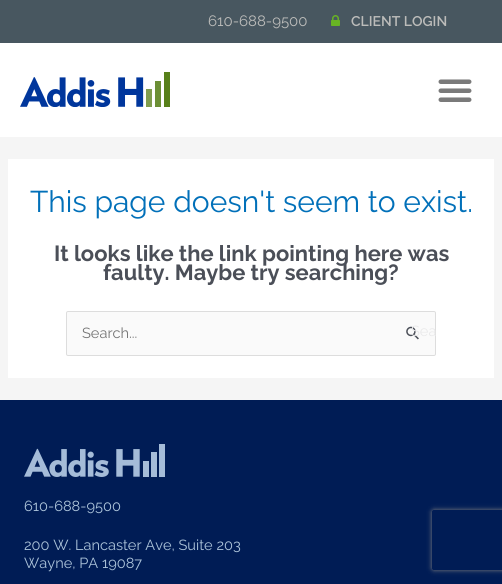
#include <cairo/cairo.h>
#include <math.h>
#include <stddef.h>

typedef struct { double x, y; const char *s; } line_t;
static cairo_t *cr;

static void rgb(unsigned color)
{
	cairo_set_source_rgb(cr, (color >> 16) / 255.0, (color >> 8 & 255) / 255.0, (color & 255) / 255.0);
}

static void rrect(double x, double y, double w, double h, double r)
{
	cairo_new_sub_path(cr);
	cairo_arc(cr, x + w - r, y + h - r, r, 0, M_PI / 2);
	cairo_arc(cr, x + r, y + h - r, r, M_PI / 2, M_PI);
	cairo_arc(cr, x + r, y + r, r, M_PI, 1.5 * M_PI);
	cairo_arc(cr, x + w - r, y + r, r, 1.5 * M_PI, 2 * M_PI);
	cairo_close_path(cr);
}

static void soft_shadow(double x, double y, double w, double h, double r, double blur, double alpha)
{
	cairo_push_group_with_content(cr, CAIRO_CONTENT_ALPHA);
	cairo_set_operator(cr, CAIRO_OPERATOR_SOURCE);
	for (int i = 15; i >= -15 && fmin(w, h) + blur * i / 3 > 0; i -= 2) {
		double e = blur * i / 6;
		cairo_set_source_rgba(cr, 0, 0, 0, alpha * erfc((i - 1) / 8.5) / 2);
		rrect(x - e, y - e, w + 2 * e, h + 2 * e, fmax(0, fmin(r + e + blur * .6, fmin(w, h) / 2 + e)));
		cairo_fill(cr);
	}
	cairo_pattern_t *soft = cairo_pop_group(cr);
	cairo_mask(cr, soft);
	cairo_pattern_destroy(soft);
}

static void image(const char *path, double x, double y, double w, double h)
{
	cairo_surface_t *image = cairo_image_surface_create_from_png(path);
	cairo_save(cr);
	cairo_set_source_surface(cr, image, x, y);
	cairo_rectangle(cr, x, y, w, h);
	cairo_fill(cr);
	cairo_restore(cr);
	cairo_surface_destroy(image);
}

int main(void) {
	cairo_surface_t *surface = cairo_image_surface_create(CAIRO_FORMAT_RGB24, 502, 584);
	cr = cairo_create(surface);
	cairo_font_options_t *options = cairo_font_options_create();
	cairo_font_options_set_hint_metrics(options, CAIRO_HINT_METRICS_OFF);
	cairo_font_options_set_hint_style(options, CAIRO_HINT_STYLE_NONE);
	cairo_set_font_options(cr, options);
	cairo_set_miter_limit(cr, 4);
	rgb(0xf5f5f5);
	cairo_paint(cr);
	rgb(0x485760);
	cairo_rectangle(cr, 0, 0, 502, 43);
	cairo_fill(cr);
	image("img/1.png", 331, 15, 9, 11);
	rgb(0xffffff);
	cairo_rectangle(cr, 0, 43, 502, 94);
	cairo_fill(cr);
	image("img/2.png", 20, 72, 150, 35);
	image("img/3.png", 438, 79, 34, 23);
	cairo_rectangle(cr, 8, 159, 486, 219);
	cairo_fill(cr);
	rgb(0xfafafa);
	rrect(66.5, 311.5, 369, 44, 1.5);
	cairo_fill_preserve(cr);
	rgb(0xdddddd);
	cairo_set_line_width(cr, 1);
	cairo_stroke(cr);
	image("img/4.png", 406, 326, 13, 14);
	rgb(0x001c55);
	cairo_rectangle(cr, 0, 400, 502, 184);
	cairo_fill(cr);
	image("img/5.png", 24, 444, 141, 33);
	cairo_save(cr);
	cairo_set_fill_rule(cr, CAIRO_FILL_RULE_EVEN_ODD);
	cairo_new_path(cr);
	cairo_move_to(cr, 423, 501);
	cairo_line_to(cr, 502, 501);
	cairo_line_to(cr, 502, 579);
	cairo_line_to(cr, 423, 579);
	cairo_close_path(cr);
	cairo_move_to(cr, 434, 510);
	cairo_line_to(cr, 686, 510);
	cairo_curve_to(cr, 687, 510, 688, 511, 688, 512);
	cairo_line_to(cr, 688, 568);
	cairo_curve_to(cr, 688, 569, 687, 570, 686, 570);
	cairo_line_to(cr, 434, 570);
	cairo_curve_to(cr, 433, 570, 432, 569, 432, 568);
	cairo_line_to(cr, 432, 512);
	cairo_curve_to(cr, 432, 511, 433, 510, 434, 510);
	cairo_close_path(cr);
	cairo_clip(cr);
	rgb(0x808080);
	soft_shadow(432, 510, 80, 60, 2, 2.5, 1);
	cairo_restore(cr);
	cairo_select_font_face(cr, "Raleway", CAIRO_FONT_SLANT_NORMAL, CAIRO_FONT_WEIGHT_NORMAL);
	cairo_set_font_size(cr, 15);
	rgb(0xbcbcba);
	cairo_move_to(cr, 208, 26);
	cairo_show_text(cr, "610-688-9500");
	cairo_select_font_face(cr, "Raleway SemiBold", CAIRO_FONT_SLANT_NORMAL, CAIRO_FONT_WEIGHT_NORMAL);
	cairo_set_font_size(cr, 14);
	cairo_move_to(cr, 351, 26);
	cairo_show_text(cr, "CLIENT LOGIN");
	cairo_select_font_face(cr, "Raleway", CAIRO_FONT_SLANT_NORMAL, CAIRO_FONT_WEIGHT_NORMAL);
	cairo_set_font_size(cr, 30);
	rgb(0x0170b9);
	cairo_move_to(cr, 30, 212);
	cairo_show_text(cr, "This page doesn't seem to exist.");
	cairo_select_font_face(cr, "Raleway", CAIRO_FONT_SLANT_NORMAL, CAIRO_FONT_WEIGHT_BOLD);
	cairo_set_font_size(cr, 21.9);
	rgb(0x4b4f58);
	cairo_move_to(cr, 54, 261);
	cairo_show_text(cr, "It looks like the link pointing here was");
	cairo_move_to(cr, 103, 280);
	cairo_show_text(cr, "faulty. Maybe try searching?");
	cairo_select_font_face(cr, "Raleway", CAIRO_FONT_SLANT_NORMAL, CAIRO_FONT_WEIGHT_NORMAL);
	cairo_set_font_size(cr, 14.6);
	rgb(0xe9e9ea);
	cairo_move_to(cr, 411, 336);
	cairo_show_text(cr, "Sea");
	rgb(0x757575);
	cairo_move_to(cr, 82, 338);
	cairo_show_text(cr, "Search...");
	rgb(0xadc4da);
	{
		static const line_t items[] = {
			{24, 511, "610-688-9500"},
			{24, 550, "200 W. Lancaster Ave, Suite 203"},
			{24, 568, "Wayne, PA 19087"},
		};
		for (size_t i = 0; i < sizeof items / sizeof *items; i++) {
			cairo_move_to(cr, items[i].x, items[i].y);
			cairo_show_text(cr, items[i].s);
		}
	}
	cairo_surface_write_to_png(surface, "page.png");
	cairo_font_options_destroy(options);
	cairo_destroy(cr);
	cairo_surface_destroy(surface);
	return 0;
}
